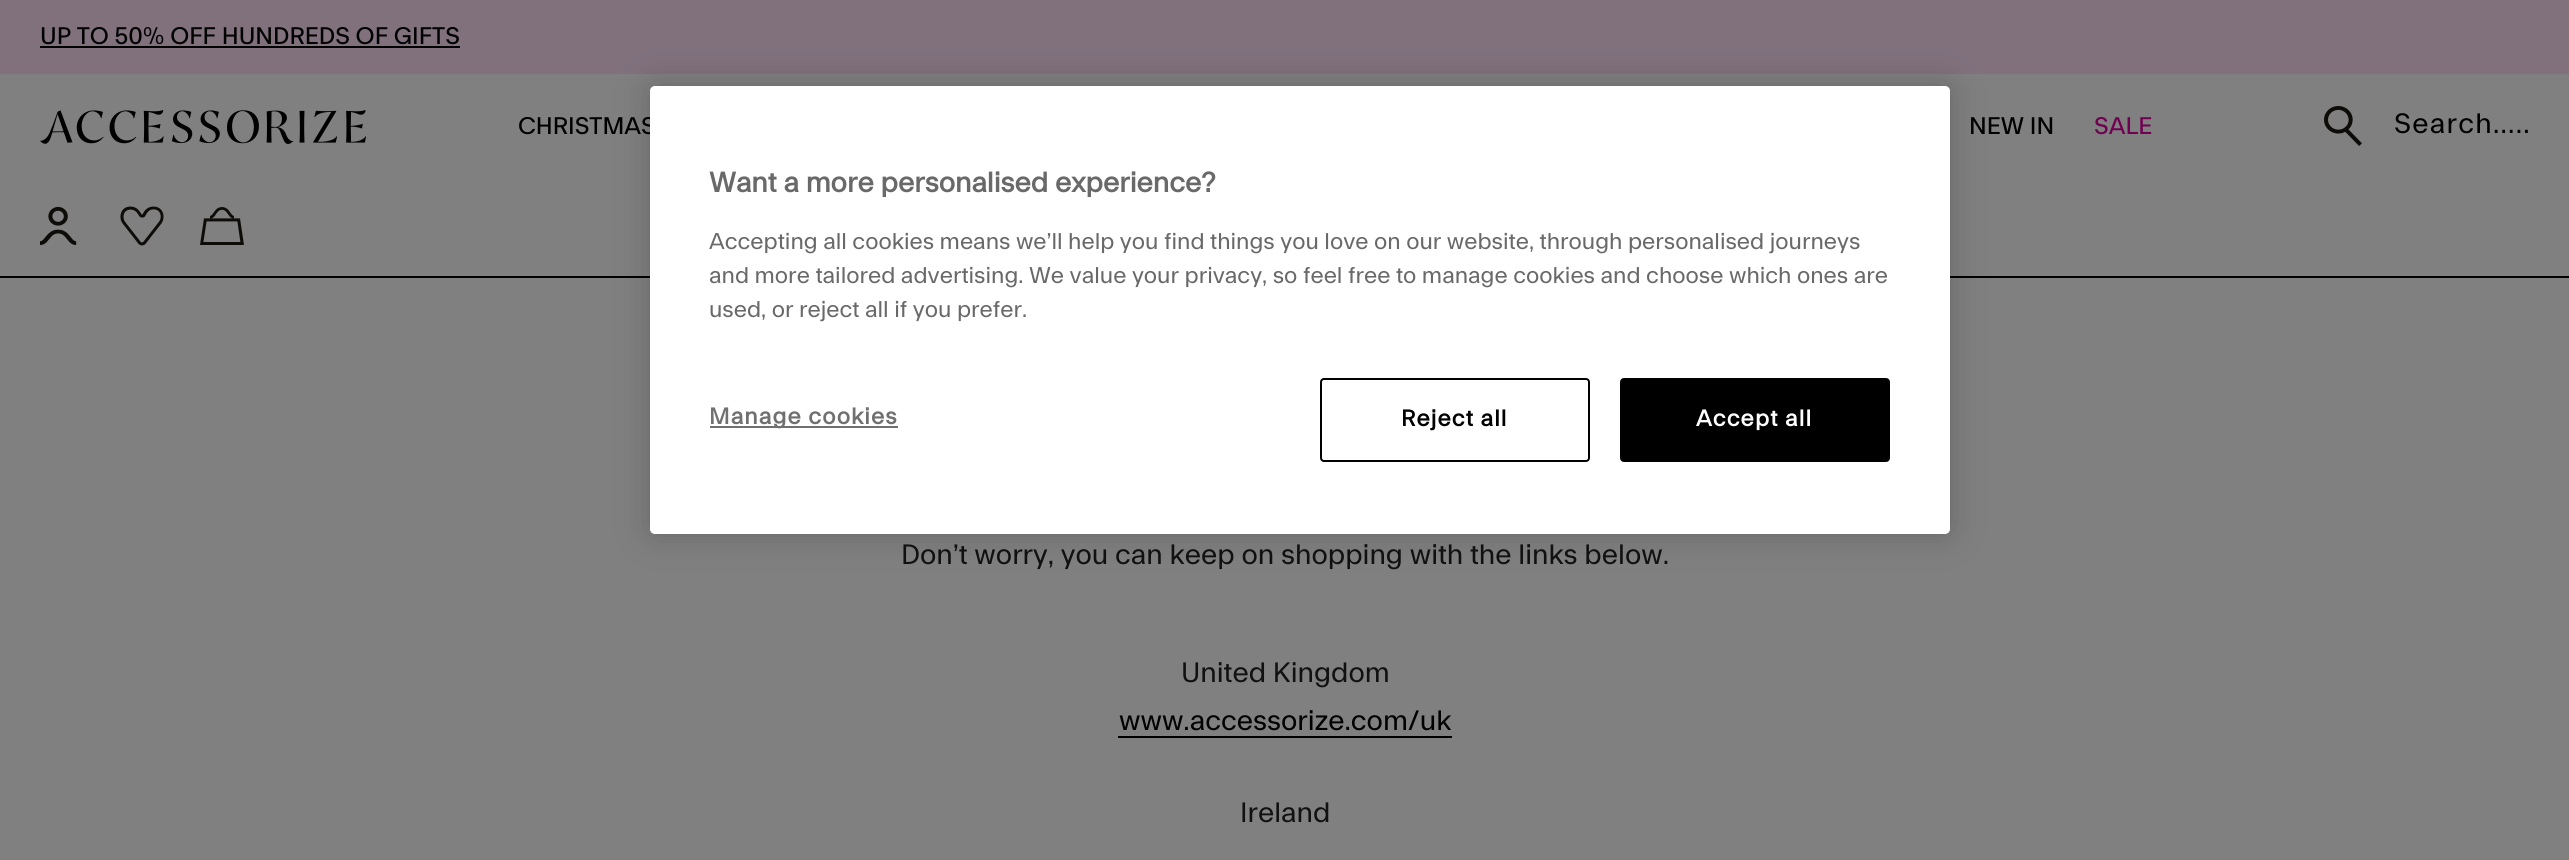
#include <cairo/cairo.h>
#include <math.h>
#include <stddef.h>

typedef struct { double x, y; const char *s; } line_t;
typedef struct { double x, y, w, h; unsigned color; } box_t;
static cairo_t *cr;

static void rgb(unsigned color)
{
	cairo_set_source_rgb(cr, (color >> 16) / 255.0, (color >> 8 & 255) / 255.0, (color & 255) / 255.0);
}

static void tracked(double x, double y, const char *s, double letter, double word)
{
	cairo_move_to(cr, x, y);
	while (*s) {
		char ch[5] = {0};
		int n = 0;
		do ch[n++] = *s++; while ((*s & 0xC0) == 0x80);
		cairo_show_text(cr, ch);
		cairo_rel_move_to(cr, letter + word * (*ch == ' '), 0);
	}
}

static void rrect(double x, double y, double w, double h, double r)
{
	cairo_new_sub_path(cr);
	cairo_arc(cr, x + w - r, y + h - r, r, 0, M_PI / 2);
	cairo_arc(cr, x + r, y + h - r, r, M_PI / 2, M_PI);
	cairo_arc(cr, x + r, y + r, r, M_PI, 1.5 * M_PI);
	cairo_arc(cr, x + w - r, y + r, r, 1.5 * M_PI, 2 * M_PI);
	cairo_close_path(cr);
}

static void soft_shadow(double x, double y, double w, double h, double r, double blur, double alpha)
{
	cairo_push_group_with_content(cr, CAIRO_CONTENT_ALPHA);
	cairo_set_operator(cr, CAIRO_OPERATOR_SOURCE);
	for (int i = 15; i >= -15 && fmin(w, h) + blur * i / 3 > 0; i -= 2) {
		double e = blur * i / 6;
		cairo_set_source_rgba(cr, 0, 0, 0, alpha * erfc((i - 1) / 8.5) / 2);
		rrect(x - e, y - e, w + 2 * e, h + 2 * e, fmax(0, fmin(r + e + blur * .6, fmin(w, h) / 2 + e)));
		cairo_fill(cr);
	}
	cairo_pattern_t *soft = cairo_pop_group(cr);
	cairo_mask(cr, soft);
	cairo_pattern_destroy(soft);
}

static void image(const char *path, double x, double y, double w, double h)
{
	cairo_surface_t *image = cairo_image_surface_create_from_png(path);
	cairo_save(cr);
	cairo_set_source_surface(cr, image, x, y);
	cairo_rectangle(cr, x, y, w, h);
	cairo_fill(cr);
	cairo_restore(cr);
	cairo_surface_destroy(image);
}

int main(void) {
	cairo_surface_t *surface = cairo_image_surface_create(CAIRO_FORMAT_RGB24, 2569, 860);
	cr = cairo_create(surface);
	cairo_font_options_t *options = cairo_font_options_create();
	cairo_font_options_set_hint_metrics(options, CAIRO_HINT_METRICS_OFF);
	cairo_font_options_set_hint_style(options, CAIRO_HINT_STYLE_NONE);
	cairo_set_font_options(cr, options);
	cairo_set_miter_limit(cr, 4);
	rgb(0x808080);
	cairo_paint(cr);
	{
		static const box_t items[] = {
			{0, 0, 2569, 74, 0x80717d},
			{40, 46, 420, 2, 0x000000},
			{0, 276, 2569, 2, 0x000000},
		};
		for (size_t i = 0; i < sizeof items / sizeof *items; i++) {
			rgb(items[i].color);
			cairo_rectangle(cr, items[i].x, items[i].y, items[i].w, items[i].h);
			cairo_fill(cr);
		}
	}
	image("img/1.png", 40, 110, 326, 34);
	image("img/2.png", 2324, 106, 38, 40);
	image("img/3.png", 40, 206, 37, 39);
	image("img/4.png", 120, 206, 44, 40);
	image("img/5.png", 200, 207, 44, 38);
	cairo_rectangle(cr, 1118, 736, 334, 2);
	cairo_fill(cr);
	rgb(0x000000);
	soft_shadow(650, 86, 1300, 448, 5, 18, 0.2);
	cairo_select_font_face(cr, "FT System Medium", CAIRO_FONT_SLANT_NORMAL, CAIRO_FONT_WEIGHT_NORMAL);
	cairo_set_font_size(cr, 24);
	rgb(0x000000);
	{
		static const line_t items[] = {
			{40, 44, "UP TO 50% OFF HUNDREDS OF GIFTS"},
			{518, 134, "CHRISTMAS"},
			{1969, 134, "NEW IN"},
		};
		for (size_t i = 0; i < sizeof items / sizeof *items; i++) {
			cairo_move_to(cr, items[i].x, items[i].y);
			cairo_show_text(cr, items[i].s);
		}
	}
	rgb(0x710052);
	cairo_move_to(cr, 2094, 134);
	cairo_show_text(cr, "SALE");
	cairo_select_font_face(cr, "FT System", CAIRO_FONT_SLANT_NORMAL, CAIRO_FONT_WEIGHT_NORMAL);
	cairo_set_font_size(cr, 28);
	rgb(0x000000);
	tracked(2394, 133, "Search.....", 1.25, 0);
	rgb(0x111111);
	cairo_move_to(cr, 901, 564);
	cairo_show_text(cr, "Don’t worry, you can keep on shopping with the links below.");
	cairo_move_to(cr, 1181, 682);
	cairo_show_text(cr, "United Kingdom");
	rgb(0x000000);
	cairo_move_to(cr, 1119, 730);
	cairo_show_text(cr, "www.accessorize.com/uk");
	rgb(0x111111);
	cairo_move_to(cr, 1240, 822);
	cairo_show_text(cr, "Ireland");
	rgb(0xffffff);
	rrect(650, 86, 1300, 448, 5);
	cairo_fill(cr);
	cairo_select_font_face(cr, "FT System", CAIRO_FONT_SLANT_NORMAL, CAIRO_FONT_WEIGHT_BOLD);
	rgb(0x696969);
	cairo_move_to(cr, 709, 192);
	cairo_show_text(cr, "Want a more personalised experience?");
	cairo_select_font_face(cr, "FT System", CAIRO_FONT_SLANT_NORMAL, CAIRO_FONT_WEIGHT_NORMAL);
	cairo_set_font_size(cr, 22.75);
	{
		static const line_t items[] = {
			{709, 249, "Accepting all cookies means we’ll help you find things you love on our website, through personalised journeys"},
			{709, 283, "and more tailored advertising. We value your privacy, so feel free to manage cookies and choose which ones are"},
			{709, 317, "used, or reject all if you prefer."},
		};
		for (size_t i = 0; i < sizeof items / sizeof *items; i++) {
			cairo_move_to(cr, items[i].x, items[i].y);
			cairo_show_text(cr, items[i].s);
		}
	}
	rgb(0x707070);
	cairo_rectangle(cr, 710, 426, 188, 2);
	cairo_fill(cr);
	cairo_select_font_face(cr, "FT System", CAIRO_FONT_SLANT_NORMAL, CAIRO_FONT_WEIGHT_BOLD);
	tracked(709, 424, "Manage cookies", 1.1, 0);
	rrect(1321, 379, 268, 82, 3);
	rgb(0x000000);
	cairo_stroke(cr);
	tracked(1401, 426, "Reject all", 1.1, 0);
	rrect(1621, 379, 268, 82, 3);
	cairo_fill_preserve(cr);
	cairo_stroke(cr);
	rgb(0xffffff);
	tracked(1696, 426, "Accept all", 1.1, 0);
	cairo_surface_write_to_png(surface, "page.png");
	cairo_font_options_destroy(options);
	cairo_destroy(cr);
	cairo_surface_destroy(surface);
	return 0;
}
